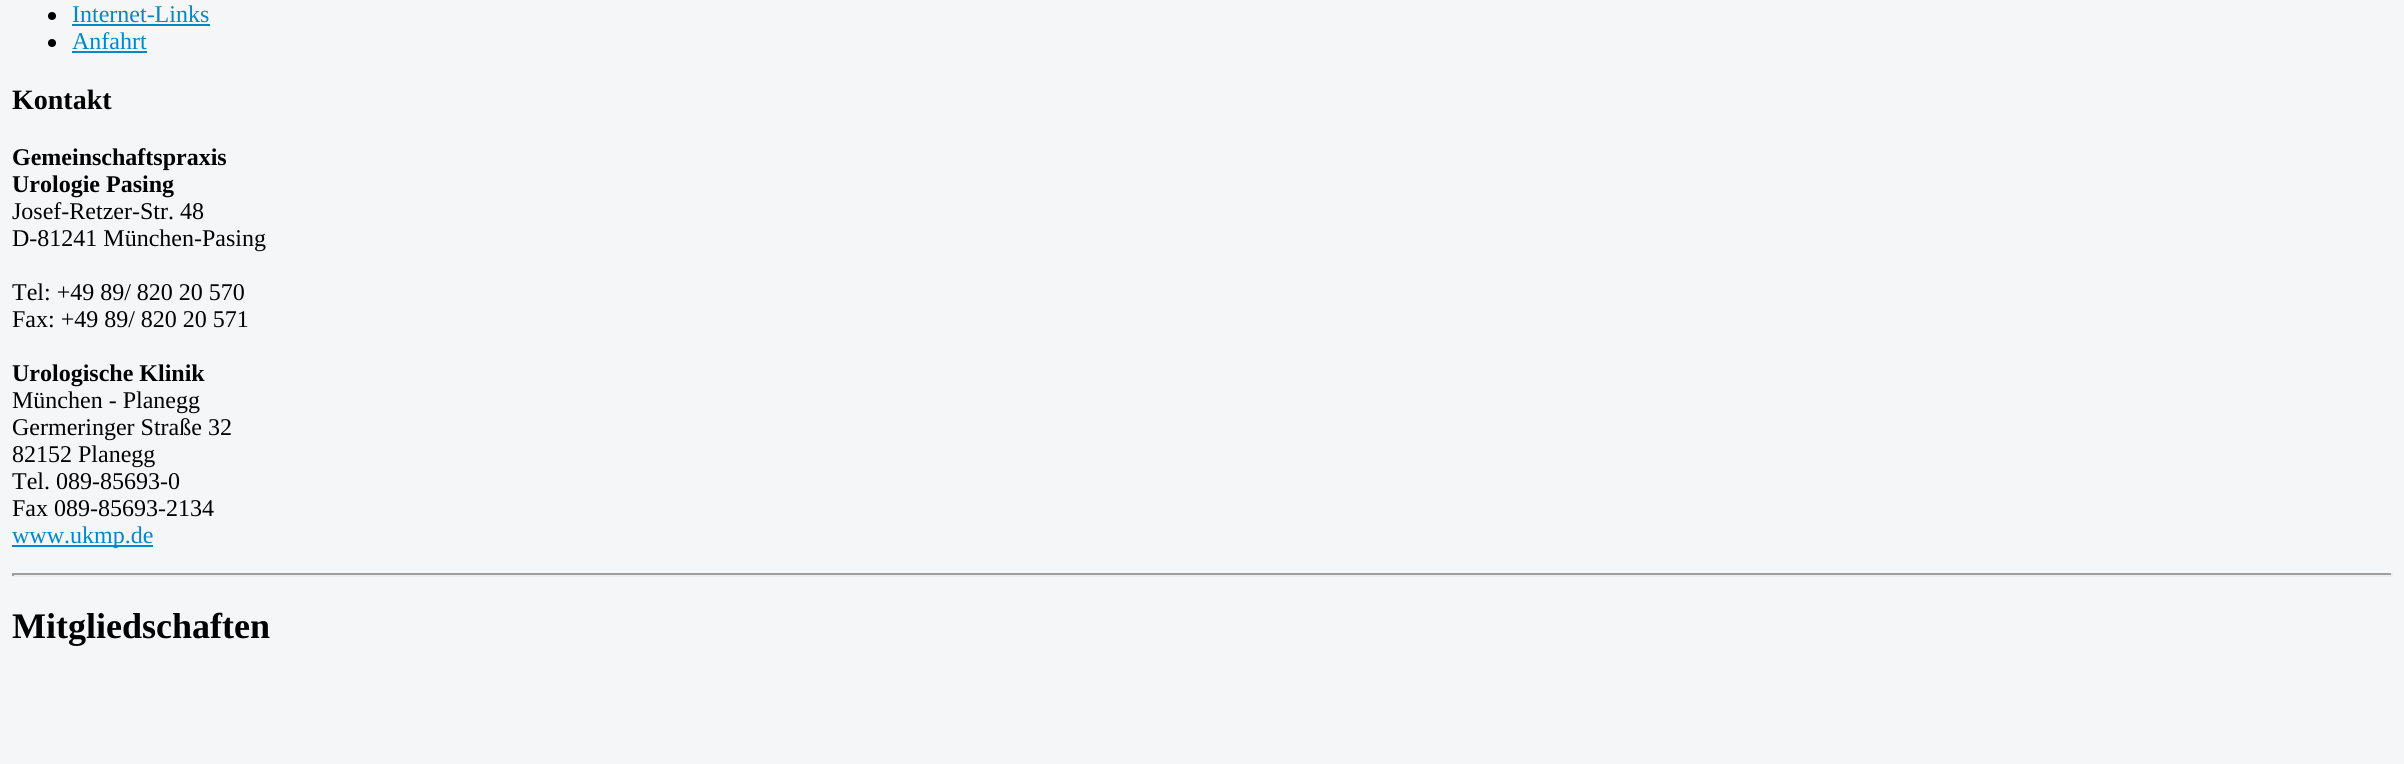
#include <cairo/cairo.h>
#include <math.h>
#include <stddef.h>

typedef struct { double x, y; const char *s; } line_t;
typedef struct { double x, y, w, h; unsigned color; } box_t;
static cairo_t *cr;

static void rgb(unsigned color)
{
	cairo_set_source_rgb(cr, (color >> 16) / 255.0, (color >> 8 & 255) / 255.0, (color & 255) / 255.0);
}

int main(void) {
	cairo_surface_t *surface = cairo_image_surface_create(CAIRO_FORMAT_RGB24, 2404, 764);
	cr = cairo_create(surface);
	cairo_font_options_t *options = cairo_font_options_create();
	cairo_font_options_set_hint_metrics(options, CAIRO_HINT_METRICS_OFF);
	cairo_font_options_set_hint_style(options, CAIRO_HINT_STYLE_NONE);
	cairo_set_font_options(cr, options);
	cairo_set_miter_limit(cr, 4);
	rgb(0xf4f6f7);
	cairo_paint(cr);
	rgb(0x000000);
	cairo_arc(cr, 52, 16, 4, 0, 2 * M_PI);
	cairo_fill(cr);
	rgb(0x0088cc);
	cairo_rectangle(cr, 72, 24, 138, 2);
	cairo_fill(cr);
	rgb(0x000000);
	cairo_arc(cr, 52, 43, 4, 0, 2 * M_PI);
	cairo_fill(cr);
	{
		static const box_t items[] = {
			{72, 51, 75, 2, 0x0088cc},
			{12, 545, 141, 2, 0x0088cc},
			{12, 573, 2381, 2, 0x9f9f9f},
			{2391, 573, 2, 3, 0xeeeeee},
			{12, 575, 2381, 2, 0xeeeeee},
			{12, 573, 2, 3, 0x9f9f9f},
		};
		for (size_t i = 0; i < sizeof items / sizeof *items; i++) {
			rgb(items[i].color);
			cairo_rectangle(cr, items[i].x, items[i].y, items[i].w, items[i].h);
			cairo_fill(cr);
		}
	}
	cairo_select_font_face(cr, "Liberation Serif", CAIRO_FONT_SLANT_NORMAL, CAIRO_FONT_WEIGHT_NORMAL);
	cairo_set_font_size(cr, 24);
	rgb(0x0088cc);
	cairo_move_to(cr, 72, 22);
	cairo_show_text(cr, "Internet-Links");
	cairo_move_to(cr, 72, 49);
	cairo_show_text(cr, "Anfahrt");
	cairo_select_font_face(cr, "Liberation Serif", CAIRO_FONT_SLANT_NORMAL, CAIRO_FONT_WEIGHT_BOLD);
	cairo_set_font_size(cr, 28);
	rgb(0x000000);
	cairo_move_to(cr, 12, 109);
	cairo_show_text(cr, "Kontakt");
	cairo_set_font_size(cr, 24);
	cairo_move_to(cr, 12, 165);
	cairo_show_text(cr, "Gemeinschaftspraxis");
	cairo_move_to(cr, 12, 192);
	cairo_show_text(cr, "Urologie Pasing");
	cairo_select_font_face(cr, "Liberation Serif", CAIRO_FONT_SLANT_NORMAL, CAIRO_FONT_WEIGHT_NORMAL);
	{
		static const line_t items[] = {
			{12, 219, "Josef-Retzer-Str. 48"},
			{12, 246, "D-81241 München-Pasing"},
			{12, 300, "Tel: +49 89/ 820 20 570"},
			{12, 327, "Fax: +49 89/ 820 20 571"},
		};
		for (size_t i = 0; i < sizeof items / sizeof *items; i++) {
			cairo_move_to(cr, items[i].x, items[i].y);
			cairo_show_text(cr, items[i].s);
		}
	}
	cairo_select_font_face(cr, "Liberation Serif", CAIRO_FONT_SLANT_NORMAL, CAIRO_FONT_WEIGHT_BOLD);
	cairo_move_to(cr, 12, 381);
	cairo_show_text(cr, "Urologische Klinik");
	cairo_select_font_face(cr, "Liberation Serif", CAIRO_FONT_SLANT_NORMAL, CAIRO_FONT_WEIGHT_NORMAL);
	{
		static const line_t items[] = {
			{12, 408, "München - Planegg"},
			{12, 435, "Germeringer Straße 32"},
			{12, 462, "82152 Planegg"},
			{12, 489, "Tel. 089-85693-0"},
			{12, 516, "Fax 089-85693-2134"},
		};
		for (size_t i = 0; i < sizeof items / sizeof *items; i++) {
			cairo_move_to(cr, items[i].x, items[i].y);
			cairo_show_text(cr, items[i].s);
		}
	}
	rgb(0x0088cc);
	cairo_move_to(cr, 12, 543);
	cairo_show_text(cr, "www.ukmp.de");
	cairo_select_font_face(cr, "Liberation Serif", CAIRO_FONT_SLANT_NORMAL, CAIRO_FONT_WEIGHT_BOLD);
	cairo_set_font_size(cr, 36);
	rgb(0x000000);
	cairo_move_to(cr, 12, 638);
	cairo_show_text(cr, "Mitgliedschaften");
	cairo_surface_write_to_png(surface, "page.png");
	cairo_font_options_destroy(options);
	cairo_destroy(cr);
	cairo_surface_destroy(surface);
	return 0;
}
